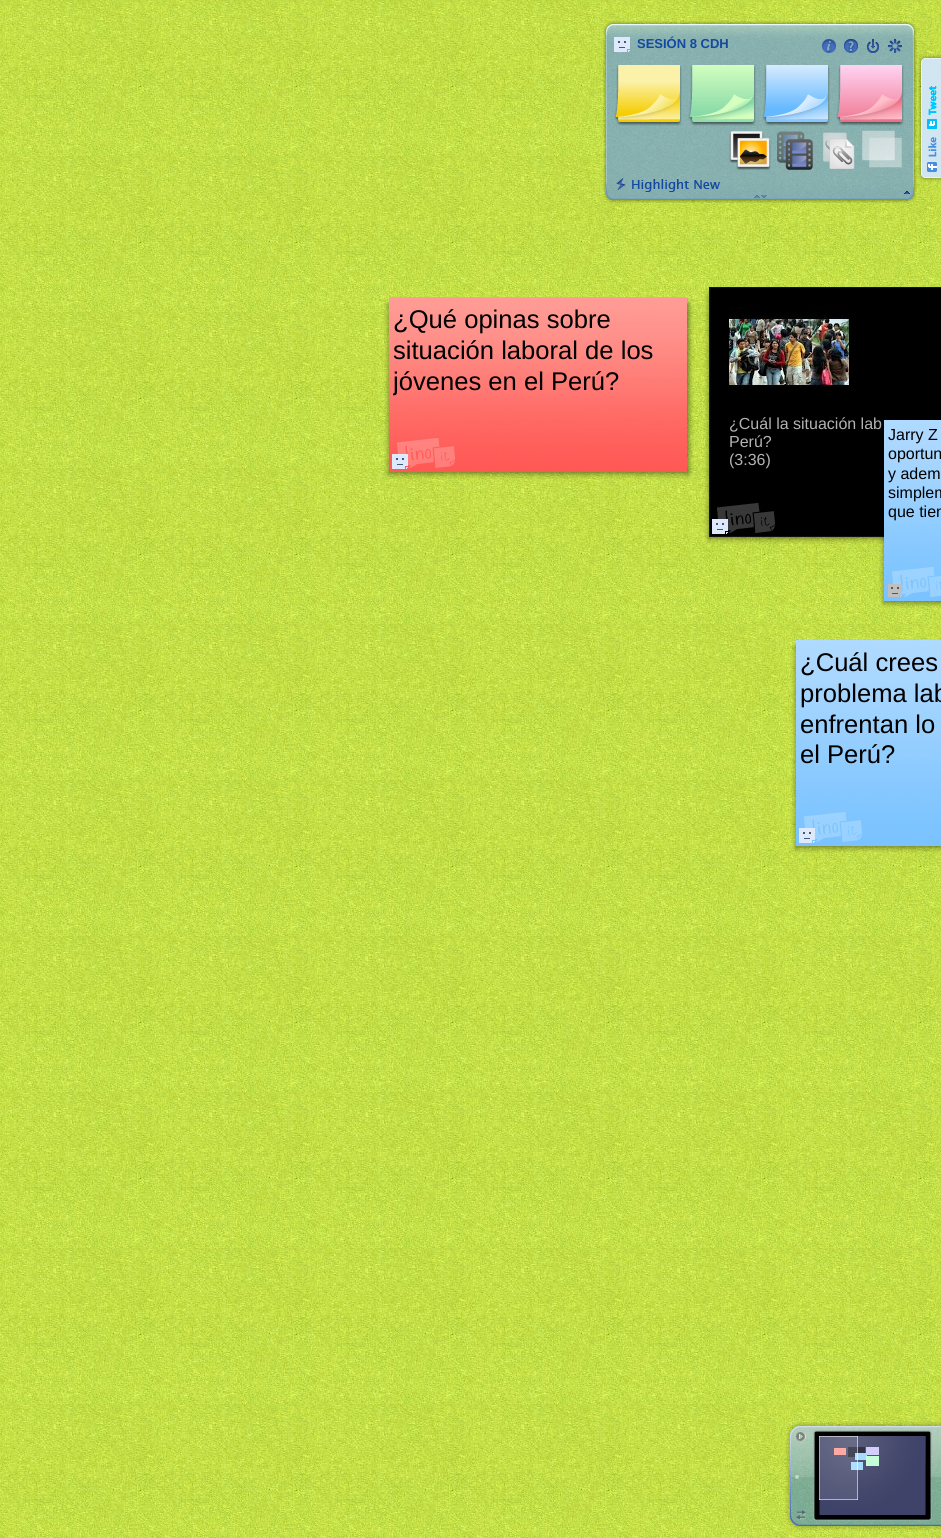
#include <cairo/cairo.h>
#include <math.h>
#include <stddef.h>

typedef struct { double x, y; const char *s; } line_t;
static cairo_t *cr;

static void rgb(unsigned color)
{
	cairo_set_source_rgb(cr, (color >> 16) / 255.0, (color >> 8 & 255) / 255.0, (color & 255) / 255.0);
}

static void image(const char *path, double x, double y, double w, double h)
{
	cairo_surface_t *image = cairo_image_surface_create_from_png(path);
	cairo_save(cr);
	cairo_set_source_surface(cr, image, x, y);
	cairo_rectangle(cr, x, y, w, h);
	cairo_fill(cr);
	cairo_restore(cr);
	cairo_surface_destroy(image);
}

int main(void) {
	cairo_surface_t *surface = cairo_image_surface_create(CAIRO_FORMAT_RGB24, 941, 1538);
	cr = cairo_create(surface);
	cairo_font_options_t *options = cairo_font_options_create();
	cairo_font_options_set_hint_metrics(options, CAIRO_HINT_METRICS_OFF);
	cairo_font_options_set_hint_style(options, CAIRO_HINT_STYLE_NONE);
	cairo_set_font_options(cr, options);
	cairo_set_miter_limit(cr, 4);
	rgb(0xffffff);
	cairo_paint(cr);
	image("img/21.png", 0, 0, 941, 1538);
	image("img/1.png", 603, 21, 314, 20);
	image("img/2.png", 603, 41, 314, 140);
	image("img/3.png", 603, 181, 314, 22);
	image("img/4.png", 614, 37, 16, 15);
	image("img/5.png", 822, 39, 14, 14);
	image("img/6.png", 844, 39, 14, 14);
	image("img/7.png", 867, 39, 12, 14);
	image("img/8.png", 888, 39, 14, 14);
	image("img/9.png", 614, 65, 68, 61);
	image("img/10.png", 688, 65, 68, 61);
	image("img/11.png", 762, 65, 68, 61);
	image("img/12.png", 836, 65, 68, 61);
	image("img/13.png", 729, 131, 42, 39);
	image("img/14.png", 777, 131, 36, 39);
	image("img/15.png", 823, 132, 32, 37);
	image("img/16.png", 862, 130, 40, 38);
	image("img/17.png", 616, 178, 104, 14);
	image("img/18.png", 904, 191, 6, 3);
	image("img/19.png", 754, 195, 13, 3);
	image("img/20.png", 917, 54, 24, 128);
	image("img/22.png", 384, 299, 5, 6);
	image("img/23.png", 389, 297, 298, 175);
	image("img/24.png", 687, 298, 7, 7);
	image("img/25.png", 384, 305, 5, 167);
	image("img/26.png", 687, 305, 7, 167);
	image("img/27.png", 384, 472, 5, 7);
	image("img/28.png", 389, 472, 298, 7);
	image("img/29.png", 687, 472, 7, 7);
	image("img/31.png", 397, 438, 58, 30);
	image("img/30.png", 392, 454, 16, 15);
	image("img/32.png", 704, 289, 5, 6);
	image("img/33.png", 709, 287, 232, 250);
	image("img/34.png", 704, 295, 5, 242);
	image("img/35.png", 704, 537, 5, 7);
	image("img/36.png", 709, 537, 175, 7);
	image("img/37.png", 729, 307, 120, 80);
	image("img/39.png", 717, 503, 58, 30);
	image("img/38.png", 712, 519, 16, 15);
	image("img/41.png", 884, 420, 57, 181);
	image("img/43.png", 879, 601, 5, 7);
	image("img/44.png", 884, 601, 57, 7);
	image("img/46.png", 892, 567, 49, 30);
	image("img/45.png", 888, 584, 14, 13);
	image("img/47.png", 791, 642, 5, 6);
	image("img/48.png", 796, 640, 145, 206);
	image("img/49.png", 791, 648, 5, 198);
	image("img/50.png", 791, 846, 5, 7);
	image("img/51.png", 796, 846, 145, 7);
	image("img/53.png", 804, 812, 58, 30);
	image("img/52.png", 799, 828, 16, 15);
	image("img/54.png", 785, 1422, 25, 109);
	image("img/55.png", 796, 1432, 10, 9);
	image("img/56.png", 796, 1510, 10, 10);
	image("img/57.png", 810, 1422, 131, 109);
	image("img/58.png", 813, 1430, 119, 91);
	rgb(0xffa09b);
	cairo_rectangle(cr, 834, 1448, 12, 7);
	cairo_fill(cr);
	cairo_set_source_rgba(cr, 0.067, 0.067, 0.067, 0.5);
	cairo_rectangle(cr, 848, 1447, 17, 10);
	cairo_fill(cr);
	rgb(0xd3cdfc);
	cairo_rectangle(cr, 866, 1447, 13, 8);
	cairo_fill(cr);
	rgb(0xa6dbff);
	cairo_rectangle(cr, 855, 1453, 12, 7);
	cairo_fill(cr);
	cairo_rectangle(cr, 851, 1462, 12, 8);
	cairo_fill(cr);
	cairo_set_source_rgba(cr, 1, 1, 1, 0.1);
	cairo_rectangle(cr, 819, 1436, 39, 64);
	cairo_fill(cr);
	cairo_set_source_rgba(cr, 1, 1, 1, 0.55);
	cairo_rectangle(cr, 819, 1436, 1, 64);
	cairo_fill(cr);
	cairo_rectangle(cr, 819, 1436, 39, 1);
	cairo_fill(cr);
	cairo_rectangle(cr, 857, 1436, 1, 64);
	cairo_fill(cr);
	cairo_rectangle(cr, 819, 1499, 39, 1);
	cairo_fill(cr);
	rgb(0xc4ffd8);
	cairo_rectangle(cr, 866, 1456, 13, 10);
	cairo_fill(cr);
	cairo_select_font_face(cr, "Liberation Sans", CAIRO_FONT_SLANT_NORMAL, CAIRO_FONT_WEIGHT_BOLD);
	cairo_set_font_size(cr, 13);
	rgb(0x1349a0);
	cairo_move_to(cr, 637, 48);
	cairo_show_text(cr, "SESIÓN 8 CDH");
	cairo_select_font_face(cr, "Liberation Sans", CAIRO_FONT_SLANT_NORMAL, CAIRO_FONT_WEIGHT_NORMAL);
	cairo_set_font_size(cr, 25.6);
	rgb(0x000000);
	cairo_move_to(cr, 393, 328);
	cairo_show_text(cr, "¿Qué opinas sobre");
	cairo_move_to(cr, 393, 359);
	cairo_show_text(cr, "situación laboral de los");
	cairo_save(cr);
	cairo_rectangle(cr, 393, 299, 290, 149);
	cairo_clip(cr);
	cairo_move_to(cr, 393, 390);
	cairo_show_text(cr, "jóvenes en el Perú?");
	cairo_restore(cr);
	cairo_set_font_size(cr, 16);
	rgb(0xb3b3b3);
	{
		static const line_t items[] = {
			{729, 429, "¿Cuál la situación lab"},
			{729, 447, "Perú?"},
			{729, 465, "(3:36)"},
		};
		for (size_t i = 0; i < sizeof items / sizeof *items; i++) {
			cairo_move_to(cr, items[i].x, items[i].y);
			cairo_show_text(cr, items[i].s);
		}
	}
	image("img/40.png", 880, 422, 4, 6);
	image("img/42.png", 879, 428, 5, 173);
	rgb(0x000000);
	{
		static const line_t items[] = {
			{888, 440, "Jarry Z"},
			{888, 459, "oportun"},
			{888, 479, "y adem"},
			{888, 498, "simplem"},
			{888, 517, "que tien"},
		};
		for (size_t i = 0; i < sizeof items / sizeof *items; i++) {
			cairo_move_to(cr, items[i].x, items[i].y);
			cairo_show_text(cr, items[i].s);
		}
	}
	cairo_set_font_size(cr, 25.6);
	{
		static const line_t items[] = {
			{800, 671, "¿Cuál crees"},
			{800, 702, "problema lab"},
			{800, 733, "enfrentan lo"},
			{800, 763, "el Perú?"},
		};
		for (size_t i = 0; i < sizeof items / sizeof *items; i++) {
			cairo_move_to(cr, items[i].x, items[i].y);
			cairo_show_text(cr, items[i].s);
		}
	}
	cairo_surface_write_to_png(surface, "page.png");
	cairo_font_options_destroy(options);
	cairo_destroy(cr);
	cairo_surface_destroy(surface);
	return 0;
}
